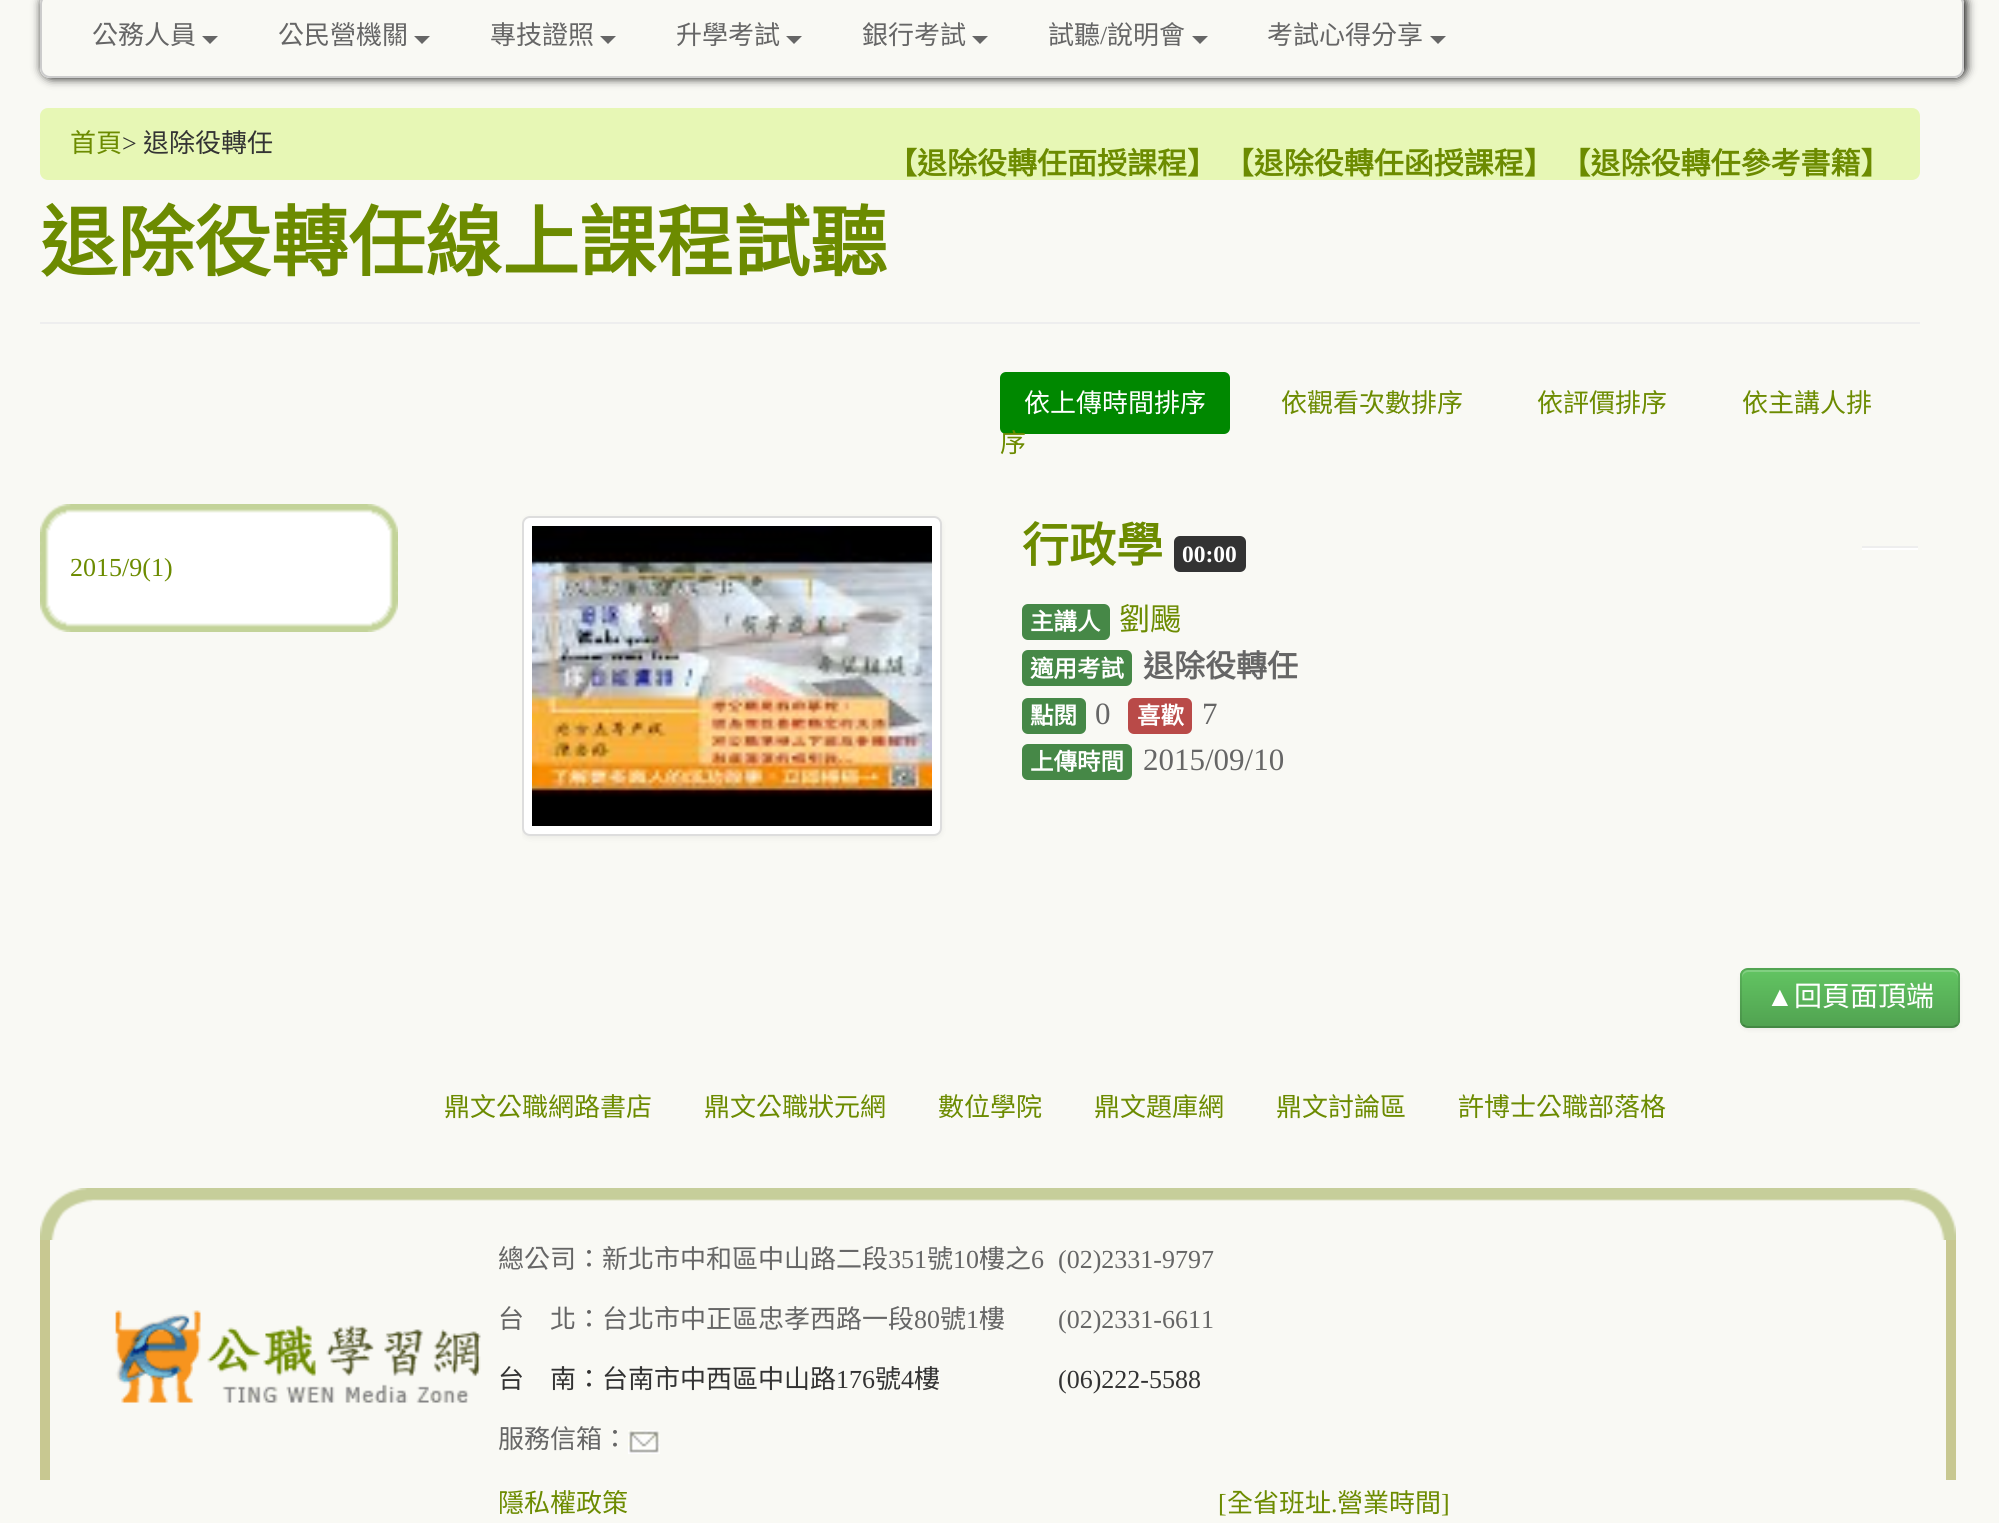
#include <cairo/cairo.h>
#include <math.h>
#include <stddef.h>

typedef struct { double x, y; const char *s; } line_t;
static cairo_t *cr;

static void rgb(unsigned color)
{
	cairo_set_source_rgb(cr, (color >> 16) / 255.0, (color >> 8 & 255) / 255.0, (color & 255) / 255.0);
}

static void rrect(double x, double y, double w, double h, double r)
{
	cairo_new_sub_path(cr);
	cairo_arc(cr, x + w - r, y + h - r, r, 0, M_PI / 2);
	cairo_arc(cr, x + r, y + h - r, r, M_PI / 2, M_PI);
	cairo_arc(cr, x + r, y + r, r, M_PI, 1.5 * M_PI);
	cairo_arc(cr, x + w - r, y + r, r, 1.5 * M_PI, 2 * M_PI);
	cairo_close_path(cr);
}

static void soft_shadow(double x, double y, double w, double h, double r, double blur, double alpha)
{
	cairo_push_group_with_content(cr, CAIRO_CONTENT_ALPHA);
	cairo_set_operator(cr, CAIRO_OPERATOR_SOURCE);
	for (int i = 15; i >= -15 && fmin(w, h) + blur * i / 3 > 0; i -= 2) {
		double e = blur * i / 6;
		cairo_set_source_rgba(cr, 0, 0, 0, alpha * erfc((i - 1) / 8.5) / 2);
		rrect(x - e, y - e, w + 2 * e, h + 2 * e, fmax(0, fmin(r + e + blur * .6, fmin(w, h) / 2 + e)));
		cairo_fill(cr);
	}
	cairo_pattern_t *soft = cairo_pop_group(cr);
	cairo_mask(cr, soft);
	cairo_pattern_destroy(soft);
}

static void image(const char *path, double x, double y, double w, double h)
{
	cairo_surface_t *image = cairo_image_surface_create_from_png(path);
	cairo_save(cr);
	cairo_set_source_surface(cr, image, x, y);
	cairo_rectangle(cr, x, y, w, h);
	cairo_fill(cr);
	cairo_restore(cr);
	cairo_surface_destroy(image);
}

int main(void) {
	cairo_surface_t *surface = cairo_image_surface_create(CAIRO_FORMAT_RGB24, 1999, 1523);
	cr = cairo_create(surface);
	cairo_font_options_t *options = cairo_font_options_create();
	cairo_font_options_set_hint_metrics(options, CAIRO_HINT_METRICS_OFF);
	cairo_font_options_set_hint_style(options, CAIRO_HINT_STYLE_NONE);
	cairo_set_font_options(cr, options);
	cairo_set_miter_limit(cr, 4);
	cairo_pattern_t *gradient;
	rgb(0xf9f9f4);
	cairo_paint(cr);
	cairo_save(cr);
	cairo_set_fill_rule(cr, CAIRO_FILL_RULE_EVEN_ODD);
	cairo_new_path(cr);
	cairo_move_to(cr, 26, 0);
	cairo_line_to(cr, 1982, 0);
	cairo_line_to(cr, 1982, 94);
	cairo_line_to(cr, 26, 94);
	cairo_close_path(cr);
	cairo_move_to(cr, 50, -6);
	cairo_line_to(cr, 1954, -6);
	cairo_curve_to(cr, 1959.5, -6, 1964, -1.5, 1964, 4);
	cairo_line_to(cr, 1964, 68);
	cairo_curve_to(cr, 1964, 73.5, 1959.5, 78, 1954, 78);
	cairo_line_to(cr, 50, 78);
	cairo_curve_to(cr, 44.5, 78, 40, 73.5, 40, 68);
	cairo_line_to(cr, 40, 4);
	cairo_curve_to(cr, 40, -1.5, 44.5, -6, 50, -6);
	cairo_close_path(cr);
	cairo_clip(cr);
	rgb(0x000000);
	soft_shadow(42, -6, 1924, 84, 10, 5, 1);
	cairo_restore(cr);
	rrect(41, -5, 1922, 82, 9);
	rgb(0xcccccc);
	cairo_stroke(cr);
	rgb(0x666666);
	cairo_new_path(cr);
	cairo_move_to(cr, 202, 36);
	cairo_line_to(cr, 218, 36);
	cairo_line_to(cr, 210, 44);
	cairo_close_path(cr);
	cairo_fill(cr);
	cairo_new_path(cr);
	cairo_move_to(cr, 414, 36);
	cairo_line_to(cr, 430, 36);
	cairo_line_to(cr, 422, 44);
	cairo_close_path(cr);
	cairo_fill(cr);
	cairo_new_path(cr);
	cairo_move_to(cr, 600, 36);
	cairo_line_to(cr, 616, 36);
	cairo_line_to(cr, 608, 44);
	cairo_close_path(cr);
	cairo_fill(cr);
	cairo_new_path(cr);
	cairo_move_to(cr, 786, 36);
	cairo_line_to(cr, 802, 36);
	cairo_line_to(cr, 794, 44);
	cairo_close_path(cr);
	cairo_fill(cr);
	cairo_new_path(cr);
	cairo_move_to(cr, 972, 36);
	cairo_line_to(cr, 988, 36);
	cairo_line_to(cr, 980, 44);
	cairo_close_path(cr);
	cairo_fill(cr);
	cairo_new_path(cr);
	cairo_move_to(cr, 1192, 36);
	cairo_line_to(cr, 1208, 36);
	cairo_line_to(cr, 1200, 44);
	cairo_close_path(cr);
	cairo_fill(cr);
	cairo_new_path(cr);
	cairo_move_to(cr, 1430, 36);
	cairo_line_to(cr, 1446, 36);
	cairo_line_to(cr, 1438, 44);
	cairo_close_path(cr);
	cairo_fill(cr);
	rgb(0xe7f7b5);
	rrect(40, 108, 1880, 72, 8);
	cairo_fill(cr);
	rgb(0xeeeeee);
	cairo_rectangle(cr, 40, 322, 1880, 2);
	cairo_fill(cr);
	rgb(0x008800);
	rrect(1000, 372, 230, 62, 6);
	cairo_fill(cr);
	image("img/1.png", 40, 504, 358, 28);
	image("img/2.png", 40, 532, 358, 70);
	image("img/3.png", 40, 602, 358, 30);
	cairo_save(cr);
	cairo_rectangle(cr, 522, 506, 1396, 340);
	cairo_clip(cr);
	rgb(0x000000);
	soft_shadow(522, 518, 420, 320, 8, 3, 0.06);
	cairo_restore(cr);
	rgb(0xffffff);
	rrect(523, 517, 418, 318, 7);
	cairo_fill_preserve(cr);
	rgb(0xdddddd);
	cairo_stroke(cr);
	image("img/4.png", 532, 526, 400, 300);
	rgb(0x333333);
	rrect(1174, 536, 72, 36, 6);
	cairo_fill(cr);
	rgb(0x468847);
	rrect(1022, 604, 88, 36, 6);
	cairo_fill(cr);
	rrect(1022, 650, 110, 36, 6);
	cairo_fill(cr);
	rrect(1022, 698, 64, 36, 6);
	cairo_fill(cr);
	rgb(0xb94a48);
	rrect(1128, 698, 64, 36, 6);
	cairo_fill(cr);
	rgb(0x468847);
	rrect(1022, 744, 110, 36, 6);
	cairo_fill(cr);
	rgb(0xeeeeee);
	cairo_rectangle(cr, 1862, 546, 56, 2);
	cairo_fill(cr);
	rgb(0xffffff);
	cairo_rectangle(cr, 1862, 548, 56, 2);
	cairo_fill(cr);
	rgb(0x000000);
	soft_shadow(1740, 970, 220, 60, 8, 2, 0.05);
	rgb(0x5bb75b);
	rrect(1740, 968, 220, 60, 8);
	cairo_fill(cr);
	cairo_save(cr);
	rrect(1740, 968, 220, 60, 8);
	cairo_clip(cr);
	gradient = cairo_pattern_create_linear(1850, 970, 1850, 1026);
	cairo_pattern_add_color_stop_rgba(gradient, 0, 0.384, 0.769, 0.384, 1);
	cairo_pattern_add_color_stop_rgba(gradient, 1, 0.318, 0.639, 0.318, 1);
	cairo_set_source(cr, gradient);
	cairo_pattern_destroy(gradient);
	cairo_rectangle(cr, 1740, 970, 220, 56);
	cairo_fill(cr);
	cairo_restore(cr);
	cairo_set_source_rgba(cr, 1, 1, 1, 0.2);
	cairo_new_path(cr);
	cairo_move_to(cr, 1748, 972);
	cairo_line_to(cr, 1952, 972);
	cairo_curve_to(cr, 1955, 972, 1958, 975, 1958, 978);
	cairo_line_to(cr, 1958, 976);
	cairo_curve_to(cr, 1958, 973, 1955, 970, 1952, 970);
	cairo_line_to(cr, 1748, 970);
	cairo_curve_to(cr, 1745, 970, 1742, 973, 1742, 976);
	cairo_line_to(cr, 1742, 978);
	cairo_curve_to(cr, 1742, 975, 1745, 972, 1748, 972);
	cairo_close_path(cr);
	cairo_fill(cr);
	cairo_new_path(cr);
	cairo_move_to(cr, 1957, 1025);
	cairo_curve_to(cr, 1955.5, 1026.5, 1954, 1027, 1952, 1027);
	cairo_line_to(cr, 1748, 1027);
	cairo_curve_to(cr, 1746, 1027, 1744.5, 1026.5, 1743, 1025);
	cairo_set_source_rgba(cr, 0, 0, 0, 0.25);
	cairo_stroke(cr);
	cairo_new_path(cr);
	cairo_move_to(cr, 1743, 1025);
	cairo_curve_to(cr, 1741.5, 1023.5, 1741, 1022, 1741, 1020);
	cairo_line_to(cr, 1741, 976);
	cairo_curve_to(cr, 1741, 974, 1741.5, 972.5, 1743, 971);
	cairo_curve_to(cr, 1744.5, 969.5, 1746, 969, 1748, 969);
	cairo_line_to(cr, 1952, 969);
	cairo_curve_to(cr, 1954, 969, 1955.5, 969.5, 1957, 971);
	cairo_curve_to(cr, 1958.5, 972.5, 1959, 974, 1959, 976);
	cairo_line_to(cr, 1959, 1020);
	cairo_curve_to(cr, 1959, 1022, 1958.5, 1023.5, 1957, 1025);
	cairo_set_source_rgba(cr, 0, 0, 0, 0.1);
	cairo_stroke(cr);
	image("img/5.png", 40, 1188, 1916, 52);
	rgb(0xc8c891);
	cairo_rectangle(cr, 1946, 1240, 10, 240);
	cairo_fill(cr);
	cairo_rectangle(cr, 40, 1240, 10, 240);
	cairo_fill(cr);
	image("img/6.png", 115, 1310, 366, 93);
	image("img/7.png", 628, 1430, 32, 24);
	cairo_select_font_face(cr, "Noto Sans CJK TC", CAIRO_FONT_SLANT_NORMAL, CAIRO_FONT_WEIGHT_NORMAL);
	cairo_set_font_size(cr, 26);
	rgb(0x666666);
	{
		static const line_t items[] = {
			{92, 44, "公務人員"},
			{278, 44, "公民營機關"},
			{490, 44, "專技證照"},
			{676, 44, "升學考試"},
			{862, 44, "銀行考試"},
			{1048, 44, "試聽"},
		};
		for (size_t i = 0; i < sizeof items / sizeof *items; i++) {
			cairo_move_to(cr, items[i].x, items[i].y);
			cairo_show_text(cr, items[i].s);
		}
	}
	cairo_select_font_face(cr, "Liberation Serif", CAIRO_FONT_SLANT_NORMAL, CAIRO_FONT_WEIGHT_NORMAL);
	cairo_move_to(cr, 1100, 44);
	cairo_show_text(cr, "/");
	cairo_select_font_face(cr, "Noto Sans CJK TC", CAIRO_FONT_SLANT_NORMAL, CAIRO_FONT_WEIGHT_NORMAL);
	cairo_move_to(cr, 1107, 44);
	cairo_show_text(cr, "說明會");
	cairo_move_to(cr, 1267, 44);
	cairo_show_text(cr, "考試心得分享");
	rgb(0x6c8b00);
	cairo_move_to(cr, 70, 152);
	cairo_show_text(cr, "首頁");
	cairo_select_font_face(cr, "Liberation Serif", CAIRO_FONT_SLANT_NORMAL, CAIRO_FONT_WEIGHT_NORMAL);
	rgb(0x333333);
	cairo_move_to(cr, 122, 152);
	cairo_show_text(cr, ">");
	cairo_select_font_face(cr, "Noto Sans CJK TC", CAIRO_FONT_SLANT_NORMAL, CAIRO_FONT_WEIGHT_NORMAL);
	cairo_move_to(cr, 143, 152);
	cairo_show_text(cr, "退除役轉任");
	cairo_select_font_face(cr, "Noto Sans CJK TC", CAIRO_FONT_SLANT_NORMAL, CAIRO_FONT_WEIGHT_BOLD);
	cairo_set_font_size(cr, 30);
	rgb(0x6c8b00);
	cairo_move_to(cr, 887, 174);
	cairo_show_text(cr, "【退除役轉任面授課程】 【退除役轉任函授課程】 【退除役轉任參考書籍】");
	cairo_set_font_size(cr, 77);
	cairo_move_to(cr, 40, 270);
	cairo_show_text(cr, "退除役轉任線上課程試聽");
	cairo_select_font_face(cr, "Noto Sans CJK TC", CAIRO_FONT_SLANT_NORMAL, CAIRO_FONT_WEIGHT_NORMAL);
	cairo_set_font_size(cr, 26);
	rgb(0xffffff);
	cairo_move_to(cr, 1024, 412);
	cairo_show_text(cr, "依上傳時間排序");
	rgb(0x6c8b00);
	{
		static const line_t items[] = {
			{1281, 412, "依觀看次數排序"},
			{1537, 412, "依評價排序"},
			{1742, 412, "依主講人排"},
			{1000, 452, "序"},
		};
		for (size_t i = 0; i < sizeof items / sizeof *items; i++) {
			cairo_move_to(cr, items[i].x, items[i].y);
			cairo_show_text(cr, items[i].s);
		}
	}
	cairo_select_font_face(cr, "Liberation Serif", CAIRO_FONT_SLANT_NORMAL, CAIRO_FONT_WEIGHT_NORMAL);
	cairo_move_to(cr, 70, 576);
	cairo_show_text(cr, "2015/9(1)");
	cairo_select_font_face(cr, "Noto Sans CJK TC", CAIRO_FONT_SLANT_NORMAL, CAIRO_FONT_WEIGHT_BOLD);
	cairo_set_font_size(cr, 47);
	cairo_move_to(cr, 1022, 562);
	cairo_show_text(cr, "行政學");
	cairo_select_font_face(cr, "Liberation Serif", CAIRO_FONT_SLANT_NORMAL, CAIRO_FONT_WEIGHT_BOLD);
	cairo_set_font_size(cr, 23.5);
	rgb(0xffffff);
	cairo_move_to(cr, 1182, 562);
	cairo_show_text(cr, "00:00");
	cairo_select_font_face(cr, "Noto Sans CJK TC", CAIRO_FONT_SLANT_NORMAL, CAIRO_FONT_WEIGHT_BOLD);
	cairo_move_to(cr, 1030, 630);
	cairo_show_text(cr, "主講人");
	cairo_select_font_face(cr, "Noto Sans CJK TC", CAIRO_FONT_SLANT_NORMAL, CAIRO_FONT_WEIGHT_NORMAL);
	cairo_set_font_size(cr, 31);
	rgb(0x6c8b00);
	cairo_move_to(cr, 1119, 630);
	cairo_show_text(cr, "劉颺");
	cairo_select_font_face(cr, "Noto Sans CJK TC", CAIRO_FONT_SLANT_NORMAL, CAIRO_FONT_WEIGHT_BOLD);
	cairo_set_font_size(cr, 23.5);
	rgb(0xffffff);
	cairo_move_to(cr, 1030, 677);
	cairo_show_text(cr, "適用考試");
	cairo_set_font_size(cr, 31);
	rgb(0x666666);
	cairo_move_to(cr, 1143, 677);
	cairo_show_text(cr, "退除役轉任");
	cairo_set_font_size(cr, 23.5);
	rgb(0xffffff);
	cairo_move_to(cr, 1030, 724);
	cairo_show_text(cr, "點閱");
	cairo_select_font_face(cr, "Liberation Serif", CAIRO_FONT_SLANT_NORMAL, CAIRO_FONT_WEIGHT_NORMAL);
	cairo_set_font_size(cr, 31);
	rgb(0x666666);
	cairo_move_to(cr, 1095, 724);
	cairo_show_text(cr, "0");
	cairo_select_font_face(cr, "Noto Sans CJK TC", CAIRO_FONT_SLANT_NORMAL, CAIRO_FONT_WEIGHT_BOLD);
	cairo_set_font_size(cr, 23.5);
	rgb(0xffffff);
	cairo_move_to(cr, 1137, 724);
	cairo_show_text(cr, "喜歡");
	cairo_select_font_face(cr, "Liberation Serif", CAIRO_FONT_SLANT_NORMAL, CAIRO_FONT_WEIGHT_NORMAL);
	cairo_set_font_size(cr, 31);
	rgb(0x666666);
	cairo_move_to(cr, 1202, 724);
	cairo_show_text(cr, "7");
	cairo_select_font_face(cr, "Noto Sans CJK TC", CAIRO_FONT_SLANT_NORMAL, CAIRO_FONT_WEIGHT_BOLD);
	cairo_set_font_size(cr, 23.5);
	rgb(0xffffff);
	cairo_move_to(cr, 1030, 770);
	cairo_show_text(cr, "上傳時間");
	cairo_select_font_face(cr, "Liberation Serif", CAIRO_FONT_SLANT_NORMAL, CAIRO_FONT_WEIGHT_NORMAL);
	cairo_set_font_size(cr, 31);
	rgb(0x666666);
	cairo_move_to(cr, 1143, 770);
	cairo_show_text(cr, "2015/09/10");
	cairo_set_font_size(cr, 28);
	rgb(0xffffff);
	cairo_move_to(cr, 1766, 1006);
	cairo_show_text(cr, "▲");
	cairo_select_font_face(cr, "Noto Sans CJK TC", CAIRO_FONT_SLANT_NORMAL, CAIRO_FONT_WEIGHT_NORMAL);
	cairo_move_to(cr, 1794, 1006);
	cairo_show_text(cr, "回頁面頂端");
	cairo_set_font_size(cr, 26);
	rgb(0x6c8b00);
	{
		static const line_t items[] = {
			{444, 1116, "鼎文公職網路書店"},
			{704, 1116, "鼎文公職狀元網"},
			{938, 1116, "數位學院"},
			{1094, 1116, "鼎文題庫網"},
			{1276, 1116, "鼎文討論區"},
			{1458, 1116, "許博士公職部落格"},
		};
		for (size_t i = 0; i < sizeof items / sizeof *items; i++) {
			cairo_move_to(cr, items[i].x, items[i].y);
			cairo_show_text(cr, items[i].s);
		}
	}
	rgb(0x666666);
	cairo_move_to(cr, 498, 1268);
	cairo_show_text(cr, "總公司：新北市中和區中山路二段");
	cairo_select_font_face(cr, "Liberation Serif", CAIRO_FONT_SLANT_NORMAL, CAIRO_FONT_WEIGHT_NORMAL);
	cairo_move_to(cr, 888, 1268);
	cairo_show_text(cr, "351");
	cairo_select_font_face(cr, "Noto Sans CJK TC", CAIRO_FONT_SLANT_NORMAL, CAIRO_FONT_WEIGHT_NORMAL);
	cairo_move_to(cr, 927, 1268);
	cairo_show_text(cr, "號");
	cairo_select_font_face(cr, "Liberation Serif", CAIRO_FONT_SLANT_NORMAL, CAIRO_FONT_WEIGHT_NORMAL);
	cairo_move_to(cr, 953, 1268);
	cairo_show_text(cr, "10");
	cairo_select_font_face(cr, "Noto Sans CJK TC", CAIRO_FONT_SLANT_NORMAL, CAIRO_FONT_WEIGHT_NORMAL);
	cairo_move_to(cr, 979, 1268);
	cairo_show_text(cr, "樓之");
	cairo_select_font_face(cr, "Liberation Serif", CAIRO_FONT_SLANT_NORMAL, CAIRO_FONT_WEIGHT_NORMAL);
	cairo_move_to(cr, 1031, 1268);
	cairo_show_text(cr, "6");
	cairo_move_to(cr, 1058, 1268);
	cairo_show_text(cr, "(02)2331-9797");
	cairo_select_font_face(cr, "Noto Sans CJK TC", CAIRO_FONT_SLANT_NORMAL, CAIRO_FONT_WEIGHT_NORMAL);
	cairo_move_to(cr, 498, 1328);
	cairo_show_text(cr, "台　北：台北市中正區忠孝西路一段");
	cairo_select_font_face(cr, "Liberation Serif", CAIRO_FONT_SLANT_NORMAL, CAIRO_FONT_WEIGHT_NORMAL);
	cairo_move_to(cr, 914, 1328);
	cairo_show_text(cr, "80");
	cairo_select_font_face(cr, "Noto Sans CJK TC", CAIRO_FONT_SLANT_NORMAL, CAIRO_FONT_WEIGHT_NORMAL);
	cairo_move_to(cr, 940, 1328);
	cairo_show_text(cr, "號");
	cairo_select_font_face(cr, "Liberation Serif", CAIRO_FONT_SLANT_NORMAL, CAIRO_FONT_WEIGHT_NORMAL);
	cairo_move_to(cr, 966, 1328);
	cairo_show_text(cr, "1");
	cairo_select_font_face(cr, "Noto Sans CJK TC", CAIRO_FONT_SLANT_NORMAL, CAIRO_FONT_WEIGHT_NORMAL);
	cairo_move_to(cr, 979, 1328);
	cairo_show_text(cr, "樓");
	cairo_select_font_face(cr, "Liberation Serif", CAIRO_FONT_SLANT_NORMAL, CAIRO_FONT_WEIGHT_NORMAL);
	cairo_move_to(cr, 1058, 1328);
	cairo_show_text(cr, "(02)2331-6611");
	cairo_select_font_face(cr, "Noto Sans CJK TC", CAIRO_FONT_SLANT_NORMAL, CAIRO_FONT_WEIGHT_NORMAL);
	rgb(0x333333);
	cairo_move_to(cr, 498, 1388);
	cairo_show_text(cr, "台　南：台南市中西區中山路");
	cairo_select_font_face(cr, "Liberation Serif", CAIRO_FONT_SLANT_NORMAL, CAIRO_FONT_WEIGHT_NORMAL);
	cairo_move_to(cr, 836, 1388);
	cairo_show_text(cr, "176");
	cairo_select_font_face(cr, "Noto Sans CJK TC", CAIRO_FONT_SLANT_NORMAL, CAIRO_FONT_WEIGHT_NORMAL);
	cairo_move_to(cr, 875, 1388);
	cairo_show_text(cr, "號");
	cairo_select_font_face(cr, "Liberation Serif", CAIRO_FONT_SLANT_NORMAL, CAIRO_FONT_WEIGHT_NORMAL);
	cairo_move_to(cr, 901, 1388);
	cairo_show_text(cr, "4");
	cairo_select_font_face(cr, "Noto Sans CJK TC", CAIRO_FONT_SLANT_NORMAL, CAIRO_FONT_WEIGHT_NORMAL);
	cairo_move_to(cr, 914, 1388);
	cairo_show_text(cr, "樓");
	cairo_select_font_face(cr, "Liberation Serif", CAIRO_FONT_SLANT_NORMAL, CAIRO_FONT_WEIGHT_NORMAL);
	cairo_move_to(cr, 1058, 1388);
	cairo_show_text(cr, "(06)222-5588");
	cairo_select_font_face(cr, "Noto Sans CJK TC", CAIRO_FONT_SLANT_NORMAL, CAIRO_FONT_WEIGHT_NORMAL);
	rgb(0x666666);
	cairo_move_to(cr, 498, 1448);
	cairo_show_text(cr, "服務信箱：");
	rgb(0x6c8b00);
	cairo_move_to(cr, 498, 1512);
	cairo_show_text(cr, "隱私權政策");
	cairo_select_font_face(cr, "Liberation Serif", CAIRO_FONT_SLANT_NORMAL, CAIRO_FONT_WEIGHT_NORMAL);
	cairo_move_to(cr, 1218, 1512);
	cairo_show_text(cr, "[");
	cairo_select_font_face(cr, "Noto Sans CJK TC", CAIRO_FONT_SLANT_NORMAL, CAIRO_FONT_WEIGHT_NORMAL);
	cairo_move_to(cr, 1227, 1512);
	cairo_show_text(cr, "全省班址");
	cairo_select_font_face(cr, "Liberation Serif", CAIRO_FONT_SLANT_NORMAL, CAIRO_FONT_WEIGHT_NORMAL);
	cairo_move_to(cr, 1331, 1512);
	cairo_show_text(cr, ".");
	cairo_select_font_face(cr, "Noto Sans CJK TC", CAIRO_FONT_SLANT_NORMAL, CAIRO_FONT_WEIGHT_NORMAL);
	cairo_move_to(cr, 1337, 1512);
	cairo_show_text(cr, "營業時間");
	cairo_select_font_face(cr, "Liberation Serif", CAIRO_FONT_SLANT_NORMAL, CAIRO_FONT_WEIGHT_NORMAL);
	cairo_move_to(cr, 1441, 1512);
	cairo_show_text(cr, "]");
	cairo_surface_write_to_png(surface, "page.png");
	cairo_font_options_destroy(options);
	cairo_destroy(cr);
	cairo_surface_destroy(surface);
	return 0;
}
